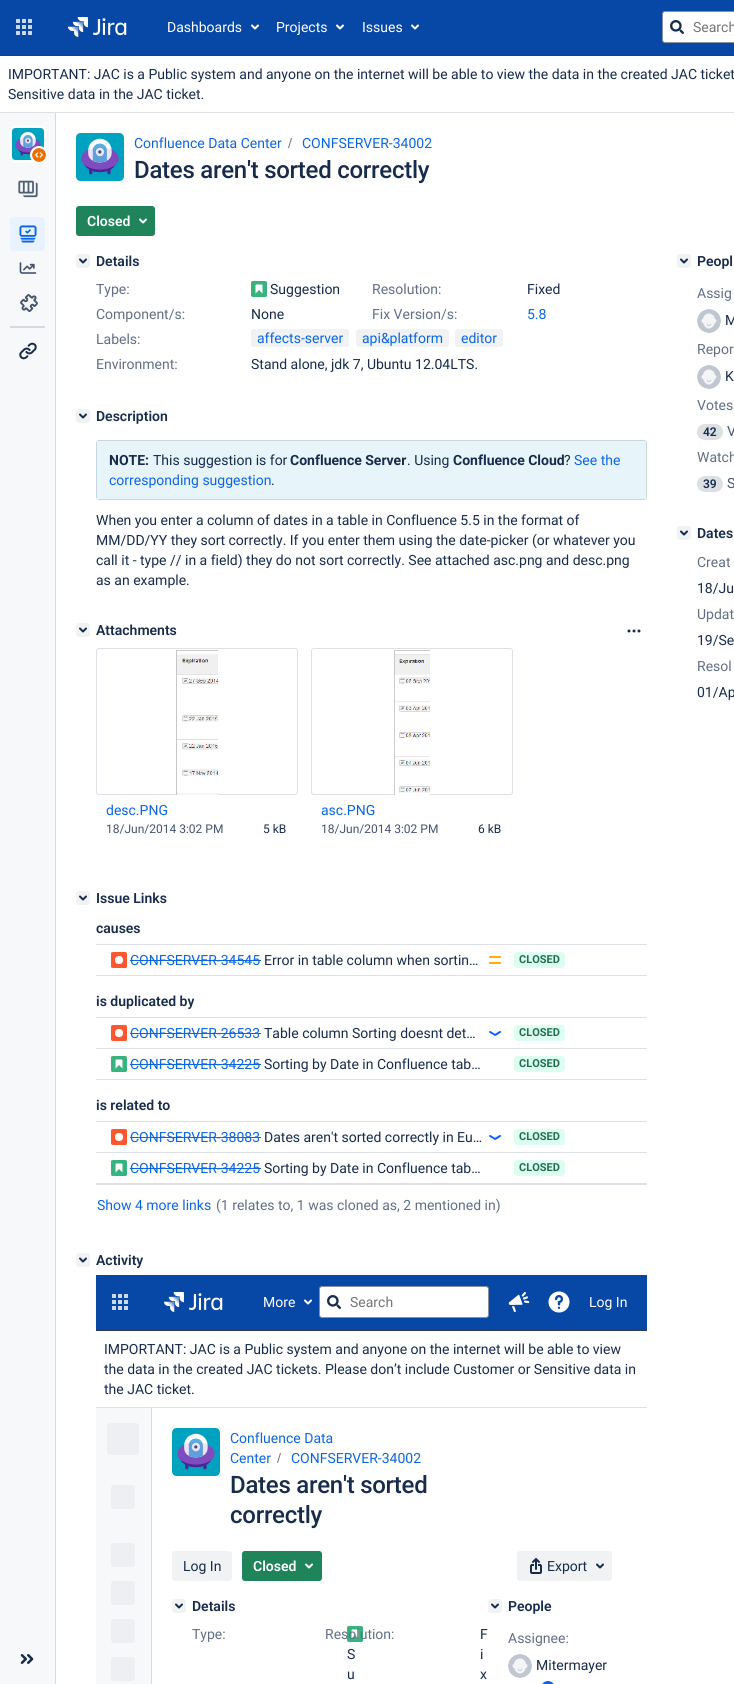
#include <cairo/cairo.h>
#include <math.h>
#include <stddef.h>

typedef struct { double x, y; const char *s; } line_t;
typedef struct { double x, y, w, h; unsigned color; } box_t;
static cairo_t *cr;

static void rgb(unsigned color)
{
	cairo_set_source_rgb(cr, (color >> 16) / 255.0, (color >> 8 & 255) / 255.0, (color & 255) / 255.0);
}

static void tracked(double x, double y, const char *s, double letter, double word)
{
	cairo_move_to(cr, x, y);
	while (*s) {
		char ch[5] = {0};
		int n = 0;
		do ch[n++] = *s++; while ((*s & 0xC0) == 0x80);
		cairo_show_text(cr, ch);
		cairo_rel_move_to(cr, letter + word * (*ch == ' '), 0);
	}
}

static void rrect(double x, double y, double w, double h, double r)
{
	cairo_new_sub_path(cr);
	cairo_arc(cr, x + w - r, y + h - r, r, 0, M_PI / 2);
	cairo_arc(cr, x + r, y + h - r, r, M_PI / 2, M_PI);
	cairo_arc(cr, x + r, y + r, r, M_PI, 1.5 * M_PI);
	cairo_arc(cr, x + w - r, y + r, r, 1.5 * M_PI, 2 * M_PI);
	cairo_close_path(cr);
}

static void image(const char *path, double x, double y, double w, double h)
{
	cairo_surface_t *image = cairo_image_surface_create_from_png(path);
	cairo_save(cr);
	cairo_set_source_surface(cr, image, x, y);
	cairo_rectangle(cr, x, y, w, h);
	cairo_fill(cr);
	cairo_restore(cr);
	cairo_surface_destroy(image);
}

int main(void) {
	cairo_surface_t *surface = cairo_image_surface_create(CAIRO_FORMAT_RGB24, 734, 1684);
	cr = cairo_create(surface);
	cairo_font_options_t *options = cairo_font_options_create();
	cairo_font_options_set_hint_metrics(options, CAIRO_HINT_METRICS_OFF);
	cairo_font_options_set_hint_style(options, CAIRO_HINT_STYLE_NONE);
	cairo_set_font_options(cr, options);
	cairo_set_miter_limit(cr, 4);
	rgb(0xffffff);
	cairo_paint(cr);
	rgb(0x0747a6);
	cairo_rectangle(cr, 0, 0, 734, 55);
	cairo_fill(cr);
	rgb(0x2e3d54);
	cairo_rectangle(cr, 0, 55, 734, 1);
	cairo_fill(cr);
	image("img/1.png", 16, 19, 16, 16);
	image("img/2.png", 68, 17, 59, 20);
	image("img/3.png", 251, 24, 8, 6);
	image("img/3.png", 336, 24, 8, 6);
	image("img/3.png", 411, 24, 8, 6);
	rgb(0xffffff);
	rrect(662.5, 11.5, 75, 31, 2.5);
	cairo_fill_preserve(cr);
	rgb(0x8590a2);
	cairo_set_line_width(cr, 1);
	cairo_stroke(cr);
	image("img/4.png", 670, 20, 14, 14);
	{
		static const box_t items[] = {
			{0, 112, 734, 1, 0xdde0e5},
			{0, 113, 55, 1571, 0xf7f8f9},
			{55, 113, 1, 1571, 0xd6d9df},
		};
		for (size_t i = 0; i < sizeof items / sizeof *items; i++) {
			rgb(items[i].color);
			cairo_rectangle(cr, items[i].x, items[i].y, items[i].w, items[i].h);
			cairo_fill(cr);
		}
	}
	rrect(11, 127, 34, 34, 4);
	rgb(0xffffff);
	cairo_set_line_width(cr, 2);
	cairo_stroke(cr);
	image("img/5.png", 12, 128, 32, 32);
	cairo_arc(cr, 39, 155, 9, 0, 2 * M_PI);
	cairo_fill(cr);
	image("img/6.png", 32, 148, 14, 14);
	image("img/7.png", 18, 180, 20, 18);
	rgb(0xe9f2ff);
	rrect(10, 217, 35, 34, 3);
	cairo_fill(cr);
	image("img/8.png", 19, 225, 18, 18);
	image("img/9.png", 19, 262, 18, 12);
	image("img/10.png", 20, 294, 18, 18);
	rgb(0xd6d9df);
	cairo_rectangle(cr, 10, 326, 35, 2);
	cairo_fill(cr);
	image("img/11.png", 19, 342, 18, 18);
	image("img/12.png", 20, 1654, 14, 10);
	image("img/13.png", 76, 133, 48, 48);
	rgb(0x707070);
	cairo_new_path(cr);
	cairo_move_to(cr, 289, 148);
	cairo_line_to(cr, 292, 138);
	cairo_line_to(cr, 291, 138);
	cairo_line_to(cr, 288, 148);
	cairo_close_path(cr);
	cairo_fill(cr);
	rgb(0x1f845a);
	rrect(76.5, 206.5, 78, 29, 2.5);
	cairo_fill_preserve(cr);
	cairo_set_line_width(cr, 1);
	cairo_stroke(cr);
	image("img/14.png", 139, 218, 8, 6);
	rgb(0xf0f2f4);
	rrect(76, 254, 14, 14, 3);
	cairo_fill(cr);
	image("img/15.png", 79, 258, 8, 6);
	image("img/16.png", 251, 281, 16, 16);
	rrect(251, 329, 98, 18, 3);
	cairo_fill(cr);
	rrect(356, 329, 93, 18, 3);
	cairo_fill(cr);
	rrect(455, 329, 48, 18, 3);
	cairo_fill(cr);
	rrect(76, 409, 14, 14, 3);
	cairo_fill(cr);
	image("img/15.png", 79, 413, 8, 6);
	rgb(0xe7f4fa);
	rrect(96, 440, 551, 60, 3);
	cairo_fill(cr);
	rrect(96.5, 440.5, 550, 59, 2.5);
	cairo_set_source_rgba(cr, 0.035, 0.118, 0.259, 0.14);
	cairo_stroke(cr);
	rgb(0xe7f4fa);
	cairo_rectangle(cr, 97, 441, 549, 58);
	cairo_fill(cr);
	rgb(0xf0f2f4);
	rrect(76, 623, 14, 14, 3);
	cairo_fill(cr);
	image("img/15.png", 79, 627, 8, 6);
	image("img/17.png", 627, 629, 14, 4);
	rrect(96.5, 648.5, 201, 146, 2.5);
	rgb(0xdde0e5);
	cairo_stroke(cr);
	image("img/18.png", 176, 650, 42, 145);
	rrect(311.5, 648.5, 201, 146, 2.5);
	cairo_stroke(cr);
	image("img/19.png", 394, 650, 36, 145);
	rgb(0xf0f2f4);
	rrect(76, 891, 14, 14, 3);
	cairo_fill(cr);
	image("img/15.png", 79, 895, 8, 6);
	rgb(0xdde0e5);
	cairo_rectangle(cr, 96, 944, 551, 1);
	cairo_fill(cr);
	cairo_rectangle(cr, 96, 975, 551, 1);
	cairo_fill(cr);
	image("img/20.png", 111, 952, 16, 16);
	rgb(0x0c66e4);
	cairo_rectangle(cr, 130, 960, 131, 1);
	cairo_fill(cr);
	image("img/21.png", 489, 956, 12, 8);
	rgb(0xdcfff1);
	rrect(514, 952, 51, 16, 3);
	cairo_fill(cr);
	rgb(0xdde0e5);
	cairo_rectangle(cr, 96, 1017, 551, 1);
	cairo_fill(cr);
	cairo_rectangle(cr, 96, 1048, 551, 1);
	cairo_fill(cr);
	image("img/20.png", 111, 1025, 16, 16);
	rgb(0x0c66e4);
	cairo_rectangle(cr, 130, 1033, 131, 1);
	cairo_fill(cr);
	image("img/22.png", 489, 1031, 12, 5);
	rgb(0xdcfff1);
	rrect(514, 1025, 51, 16, 3);
	cairo_fill(cr);
	rgb(0xdde0e5);
	cairo_rectangle(cr, 96, 1079, 551, 1);
	cairo_fill(cr);
	image("img/23.png", 111, 1056, 16, 16);
	rgb(0x0c66e4);
	cairo_rectangle(cr, 130, 1064, 131, 1);
	cairo_fill(cr);
	rgb(0xdcfff1);
	rrect(514, 1056, 51, 16, 3);
	cairo_fill(cr);
	rgb(0xdde0e5);
	cairo_rectangle(cr, 96, 1121, 551, 1);
	cairo_fill(cr);
	cairo_rectangle(cr, 96, 1152, 551, 1);
	cairo_fill(cr);
	image("img/20.png", 111, 1129, 16, 16);
	rgb(0x0c66e4);
	cairo_rectangle(cr, 130, 1137, 131, 1);
	cairo_fill(cr);
	image("img/22.png", 489, 1135, 12, 5);
	rgb(0xdcfff1);
	rrect(514, 1129, 51, 16, 3);
	cairo_fill(cr);
	image("img/23.png", 111, 1160, 16, 16);
	rgb(0x0c66e4);
	cairo_rectangle(cr, 130, 1168, 131, 1);
	cairo_fill(cr);
	rgb(0xdcfff1);
	rrect(514, 1160, 51, 16, 3);
	cairo_fill(cr);
	rgb(0xdde0e5);
	cairo_rectangle(cr, 96, 1183, 551, 2);
	cairo_fill(cr);
	rgb(0xf0f2f4);
	rrect(76, 1253, 14, 14, 3);
	cairo_fill(cr);
	image("img/15.png", 79, 1257, 8, 6);
	rgb(0x0747a6);
	cairo_rectangle(cr, 96, 1275, 551, 55);
	cairo_fill(cr);
	rgb(0x2e3d54);
	cairo_rectangle(cr, 96, 1330, 551, 1);
	cairo_fill(cr);
	image("img/1.png", 112, 1294, 16, 16);
	image("img/2.png", 164, 1292, 59, 20);
	image("img/3.png", 304, 1299, 8, 6);
	rgb(0xffffff);
	rrect(319.5, 1286.5, 169, 31, 2.5);
	cairo_fill_preserve(cr);
	rgb(0x8590a2);
	cairo_stroke(cr);
	image("img/4.png", 327, 1295, 14, 14);
	image("img/24.png", 508, 1292, 22, 20);
	image("img/25.png", 548, 1291, 22, 22);
	{
		static const box_t items[] = {
			{96, 1407, 551, 1, 0xdde0e5},
			{96, 1408, 55, 276, 0xf7f8f9},
			{151, 1408, 1, 276, 0xd6d9df},
		};
		for (size_t i = 0; i < sizeof items / sizeof *items; i++) {
			rgb(items[i].color);
			cairo_rectangle(cr, items[i].x, items[i].y, items[i].w, items[i].h);
			cairo_fill(cr);
		}
	}
	rgb(0xedeff2);
	rrect(107, 1423, 32, 32, 3);
	cairo_fill(cr);
	rrect(111, 1485, 24, 24, 3);
	cairo_fill(cr);
	rrect(111, 1543, 24, 24, 3);
	cairo_fill(cr);
	rrect(111, 1581, 24, 24, 3);
	cairo_fill(cr);
	rrect(111, 1619, 24, 24, 3);
	cairo_fill(cr);
	rrect(111, 1657, 24, 24, 3);
	cairo_fill(cr);
	image("img/13.png", 172, 1428, 48, 48);
	rgb(0x707070);
	cairo_new_path(cr);
	cairo_move_to(cr, 278, 1463);
	cairo_line_to(cr, 281, 1453);
	cairo_line_to(cr, 280, 1453);
	cairo_line_to(cr, 277, 1463);
	cairo_close_path(cr);
	cairo_fill(cr);
	rgb(0xf0f2f4);
	rrect(172, 1551, 60, 30, 3);
	cairo_fill(cr);
	rgb(0x1f845a);
	rrect(242.5, 1551.5, 79, 29, 2.5);
	cairo_fill_preserve(cr);
	cairo_stroke(cr);
	image("img/14.png", 305, 1563, 8, 6);
	rgb(0xf0f2f4);
	rrect(517, 1551, 95, 30, 3);
	cairo_fill(cr);
	image("img/26.png", 530, 1558, 12, 16);
	image("img/27.png", 596, 1563, 8, 6);
	rrect(172, 1599, 14, 14, 3);
	cairo_fill(cr);
	image("img/15.png", 175, 1603, 8, 6);
	image("img/23.png", 347, 1626, 16, 16);
	rrect(488, 1599, 14, 14, 3);
	cairo_fill(cr);
	image("img/15.png", 491, 1603, 8, 6);
	image("img/28.png", 508, 1654, 24, 24);
	image("img/29.png", 542, 1681, 12, 3);
	rrect(677, 254, 14, 14, 3);
	cairo_fill(cr);
	image("img/15.png", 680, 258, 8, 6);
	image("img/30.png", 697, 309, 24, 24);
	image("img/30.png", 697, 365, 24, 24);
	rgb(0xdcdfe4);
	rrect(697, 424, 26, 16, 8);
	cairo_fill(cr);
	rrect(697, 476, 26, 16, 8);
	cairo_fill(cr);
	rgb(0xf0f2f4);
	rrect(677, 526, 14, 14, 3);
	cairo_fill(cr);
	image("img/15.png", 680, 530, 8, 6);
	cairo_select_font_face(cr, "Roboto", CAIRO_FONT_SLANT_NORMAL, CAIRO_FONT_WEIGHT_NORMAL);
	cairo_set_font_size(cr, 14);
	rgb(0xffffff);
	{
		static const line_t items[] = {
			{167, 32, "Dashboards"},
			{276, 32, "Projects"},
			{362, 32, "Issues"},
		};
		for (size_t i = 0; i < sizeof items / sizeof *items; i++) {
			cairo_move_to(cr, items[i].x, items[i].y);
			cairo_show_text(cr, items[i].s);
		}
	}
	rgb(0x757575);
	cairo_move_to(cr, 693, 32);
	cairo_show_text(cr, "Search");
	rgb(0x172b4d);
	cairo_move_to(cr, 8, 79);
	cairo_show_text(cr, "IMPORTANT: JAC is a Public system and anyone on the internet will be able to view the data in the created JAC ticket");
	cairo_move_to(cr, 8, 99);
	cairo_show_text(cr, "Sensitive data in the JAC ticket.");
	rgb(0x0c66e4);
	cairo_move_to(cr, 134, 148);
	cairo_show_text(cr, "Confluence Data Center");
	cairo_move_to(cr, 302, 148);
	cairo_show_text(cr, "CONFSERVER-34002");
	cairo_select_font_face(cr, "Roboto Medium", CAIRO_FONT_SLANT_NORMAL, CAIRO_FONT_WEIGHT_NORMAL);
	cairo_set_font_size(cr, 24);
	rgb(0x172b4d);
	tracked(134, 178, "Dates aren't sorted correctly", -0.25, 0);
	cairo_select_font_face(cr, "Roboto SemiBold", CAIRO_FONT_SLANT_NORMAL, CAIRO_FONT_WEIGHT_NORMAL);
	cairo_set_font_size(cr, 14);
	rgb(0xffffff);
	cairo_move_to(cr, 87, 226);
	cairo_show_text(cr, "Closed");
	rgb(0x172b4d);
	cairo_move_to(cr, 96, 266);
	cairo_show_text(cr, "Details");
	cairo_select_font_face(cr, "Roboto", CAIRO_FONT_SLANT_NORMAL, CAIRO_FONT_WEIGHT_NORMAL);
	rgb(0x626f86);
	cairo_move_to(cr, 96, 294);
	cairo_show_text(cr, "Type:");
	rgb(0x172b4d);
	cairo_move_to(cr, 270, 294);
	cairo_show_text(cr, "Suggestion");
	rgb(0x626f86);
	cairo_move_to(cr, 372, 294);
	cairo_show_text(cr, "Resolution:");
	rgb(0x172b4d);
	cairo_move_to(cr, 527, 294);
	cairo_show_text(cr, "Fixed");
	rgb(0x626f86);
	cairo_move_to(cr, 96, 319);
	cairo_show_text(cr, "Component/s:");
	rgb(0x172b4d);
	cairo_move_to(cr, 251, 319);
	cairo_show_text(cr, "None");
	rgb(0x626f86);
	cairo_move_to(cr, 372, 319);
	cairo_show_text(cr, "Fix Version/s:");
	rgb(0x0c66e4);
	cairo_move_to(cr, 527, 319);
	cairo_show_text(cr, "5.8");
	rgb(0x626f86);
	cairo_move_to(cr, 96, 344);
	cairo_show_text(cr, "Labels:");
	rgb(0x0c66e4);
	{
		static const line_t items[] = {
			{257, 343, "affects-server"},
			{362, 343, "api&platform"},
			{461, 343, "editor"},
		};
		for (size_t i = 0; i < sizeof items / sizeof *items; i++) {
			cairo_move_to(cr, items[i].x, items[i].y);
			cairo_show_text(cr, items[i].s);
		}
	}
	rgb(0x626f86);
	cairo_move_to(cr, 96, 369);
	cairo_show_text(cr, "Environment:");
	rgb(0x172b4d);
	cairo_move_to(cr, 251, 369);
	cairo_show_text(cr, "Stand alone, jdk 7, Ubuntu 12.04LTS.");
	cairo_select_font_face(cr, "Roboto SemiBold", CAIRO_FONT_SLANT_NORMAL, CAIRO_FONT_WEIGHT_NORMAL);
	cairo_move_to(cr, 96, 421);
	cairo_show_text(cr, "Description");
	cairo_select_font_face(cr, "Roboto", CAIRO_FONT_SLANT_NORMAL, CAIRO_FONT_WEIGHT_BOLD);
	cairo_move_to(cr, 109, 465);
	cairo_show_text(cr, "NOTE:");
	cairo_select_font_face(cr, "Roboto", CAIRO_FONT_SLANT_NORMAL, CAIRO_FONT_WEIGHT_NORMAL);
	cairo_move_to(cr, 153, 465);
	cairo_show_text(cr, "This suggestion is for");
	cairo_select_font_face(cr, "Roboto", CAIRO_FONT_SLANT_NORMAL, CAIRO_FONT_WEIGHT_BOLD);
	cairo_move_to(cr, 290, 465);
	cairo_show_text(cr, "Confluence Server");
	cairo_select_font_face(cr, "Roboto", CAIRO_FONT_SLANT_NORMAL, CAIRO_FONT_WEIGHT_NORMAL);
	cairo_move_to(cr, 407, 465);
	cairo_show_text(cr, ". Using");
	cairo_select_font_face(cr, "Roboto", CAIRO_FONT_SLANT_NORMAL, CAIRO_FONT_WEIGHT_BOLD);
	cairo_move_to(cr, 453, 465);
	cairo_show_text(cr, "Confluence Cloud");
	cairo_select_font_face(cr, "Roboto", CAIRO_FONT_SLANT_NORMAL, CAIRO_FONT_WEIGHT_NORMAL);
	cairo_move_to(cr, 564, 465);
	cairo_show_text(cr, "?");
	rgb(0x0c66e4);
	cairo_move_to(cr, 574, 465);
	cairo_show_text(cr, "See the");
	cairo_move_to(cr, 109, 485);
	cairo_show_text(cr, "corresponding suggestion");
	rgb(0x172b4d);
	{
		static const line_t items[] = {
			{271, 485, "."},
			{96, 525, "When you enter a column of dates in a table in Confluence 5.5 in the format of"},
			{96, 545, "MM/DD/YY they sort correctly. If you enter them using the date-picker (or whatever you"},
			{96, 565, "call it - type // in a field) they do not sort correctly. See attached asc.png and desc.png"},
			{96, 585, "as an example."},
		};
		for (size_t i = 0; i < sizeof items / sizeof *items; i++) {
			cairo_move_to(cr, items[i].x, items[i].y);
			cairo_show_text(cr, items[i].s);
		}
	}
	cairo_select_font_face(cr, "Roboto SemiBold", CAIRO_FONT_SLANT_NORMAL, CAIRO_FONT_WEIGHT_NORMAL);
	cairo_move_to(cr, 96, 635);
	cairo_show_text(cr, "Attachments");
	cairo_select_font_face(cr, "Roboto", CAIRO_FONT_SLANT_NORMAL, CAIRO_FONT_WEIGHT_NORMAL);
	rgb(0x0c66e4);
	cairo_move_to(cr, 106, 815);
	cairo_show_text(cr, "desc.PNG");
	cairo_set_font_size(cr, 12);
	rgb(0x44546f);
	cairo_move_to(cr, 106, 833);
	cairo_show_text(cr, "18/Jun/2014 3:02 PM");
	rgb(0x172b4d);
	cairo_move_to(cr, 263, 833);
	cairo_show_text(cr, "5 kB");
	cairo_set_font_size(cr, 14);
	rgb(0x0c66e4);
	cairo_move_to(cr, 321, 815);
	cairo_show_text(cr, "asc.PNG");
	cairo_set_font_size(cr, 12);
	rgb(0x44546f);
	cairo_move_to(cr, 321, 833);
	cairo_show_text(cr, "18/Jun/2014 3:02 PM");
	rgb(0x172b4d);
	cairo_move_to(cr, 478, 833);
	cairo_show_text(cr, "6 kB");
	cairo_select_font_face(cr, "Roboto SemiBold", CAIRO_FONT_SLANT_NORMAL, CAIRO_FONT_WEIGHT_NORMAL);
	cairo_set_font_size(cr, 14);
	cairo_move_to(cr, 96, 903);
	cairo_show_text(cr, "Issue Links");
	cairo_move_to(cr, 96, 933);
	cairo_show_text(cr, "causes");
	cairo_select_font_face(cr, "Roboto", CAIRO_FONT_SLANT_NORMAL, CAIRO_FONT_WEIGHT_NORMAL);
	rgb(0x0c66e4);
	cairo_move_to(cr, 130, 965);
	cairo_show_text(cr, "CONFSERVER-34545");
	rgb(0x172b4d);
	cairo_move_to(cr, 264, 965);
	cairo_show_text(cr, "Error in table column when sortin…");
	cairo_select_font_face(cr, "Roboto", CAIRO_FONT_SLANT_NORMAL, CAIRO_FONT_WEIGHT_BOLD);
	cairo_set_font_size(cr, 11);
	rgb(0x216e4e);
	cairo_move_to(cr, 519, 963);
	cairo_show_text(cr, "CLOSED");
	cairo_select_font_face(cr, "Roboto SemiBold", CAIRO_FONT_SLANT_NORMAL, CAIRO_FONT_WEIGHT_NORMAL);
	cairo_set_font_size(cr, 14);
	rgb(0x172b4d);
	cairo_move_to(cr, 96, 1006);
	cairo_show_text(cr, "is duplicated by");
	cairo_select_font_face(cr, "Roboto", CAIRO_FONT_SLANT_NORMAL, CAIRO_FONT_WEIGHT_NORMAL);
	rgb(0x0c66e4);
	cairo_move_to(cr, 130, 1038);
	cairo_show_text(cr, "CONFSERVER-26533");
	rgb(0x172b4d);
	cairo_move_to(cr, 264, 1038);
	cairo_show_text(cr, "Table column Sorting doesnt det…");
	cairo_select_font_face(cr, "Roboto", CAIRO_FONT_SLANT_NORMAL, CAIRO_FONT_WEIGHT_BOLD);
	cairo_set_font_size(cr, 11);
	rgb(0x216e4e);
	cairo_move_to(cr, 519, 1036);
	cairo_show_text(cr, "CLOSED");
	cairo_select_font_face(cr, "Roboto", CAIRO_FONT_SLANT_NORMAL, CAIRO_FONT_WEIGHT_NORMAL);
	cairo_set_font_size(cr, 14);
	rgb(0x0c66e4);
	cairo_move_to(cr, 130, 1069);
	cairo_show_text(cr, "CONFSERVER-34225");
	rgb(0x172b4d);
	cairo_move_to(cr, 264, 1069);
	cairo_show_text(cr, "Sorting by Date in Confluence tab…");
	cairo_select_font_face(cr, "Roboto", CAIRO_FONT_SLANT_NORMAL, CAIRO_FONT_WEIGHT_BOLD);
	cairo_set_font_size(cr, 11);
	rgb(0x216e4e);
	cairo_move_to(cr, 519, 1067);
	cairo_show_text(cr, "CLOSED");
	cairo_select_font_face(cr, "Roboto SemiBold", CAIRO_FONT_SLANT_NORMAL, CAIRO_FONT_WEIGHT_NORMAL);
	cairo_set_font_size(cr, 14);
	rgb(0x172b4d);
	cairo_move_to(cr, 96, 1110);
	cairo_show_text(cr, "is related to");
	cairo_select_font_face(cr, "Roboto", CAIRO_FONT_SLANT_NORMAL, CAIRO_FONT_WEIGHT_NORMAL);
	rgb(0x0c66e4);
	cairo_move_to(cr, 130, 1142);
	cairo_show_text(cr, "CONFSERVER-38083");
	rgb(0x172b4d);
	cairo_move_to(cr, 264, 1142);
	cairo_show_text(cr, "Dates aren't sorted correctly in Eu…");
	cairo_select_font_face(cr, "Roboto", CAIRO_FONT_SLANT_NORMAL, CAIRO_FONT_WEIGHT_BOLD);
	cairo_set_font_size(cr, 11);
	rgb(0x216e4e);
	cairo_move_to(cr, 519, 1140);
	cairo_show_text(cr, "CLOSED");
	cairo_select_font_face(cr, "Roboto", CAIRO_FONT_SLANT_NORMAL, CAIRO_FONT_WEIGHT_NORMAL);
	cairo_set_font_size(cr, 14);
	rgb(0x0c66e4);
	cairo_move_to(cr, 130, 1173);
	cairo_show_text(cr, "CONFSERVER-34225");
	rgb(0x172b4d);
	cairo_move_to(cr, 264, 1173);
	cairo_show_text(cr, "Sorting by Date in Confluence tab…");
	cairo_select_font_face(cr, "Roboto", CAIRO_FONT_SLANT_NORMAL, CAIRO_FONT_WEIGHT_BOLD);
	cairo_set_font_size(cr, 11);
	rgb(0x216e4e);
	cairo_move_to(cr, 519, 1171);
	cairo_show_text(cr, "CLOSED");
	cairo_select_font_face(cr, "Roboto", CAIRO_FONT_SLANT_NORMAL, CAIRO_FONT_WEIGHT_NORMAL);
	cairo_set_font_size(cr, 14);
	rgb(0x0c66e4);
	cairo_move_to(cr, 97, 1210);
	cairo_show_text(cr, "Show 4 more links");
	rgb(0x626f86);
	cairo_move_to(cr, 216, 1210);
	cairo_show_text(cr, "(1 relates to, 1 was cloned as, 2 mentioned in)");
	cairo_select_font_face(cr, "Roboto SemiBold", CAIRO_FONT_SLANT_NORMAL, CAIRO_FONT_WEIGHT_NORMAL);
	rgb(0x172b4d);
	cairo_move_to(cr, 96, 1265);
	cairo_show_text(cr, "Activity");
	cairo_select_font_face(cr, "Roboto", CAIRO_FONT_SLANT_NORMAL, CAIRO_FONT_WEIGHT_NORMAL);
	rgb(0xffffff);
	cairo_move_to(cr, 263, 1307);
	cairo_show_text(cr, "More");
	rgb(0x757575);
	cairo_move_to(cr, 350, 1307);
	cairo_show_text(cr, "Search");
	rgb(0xffffff);
	cairo_move_to(cr, 589, 1307);
	cairo_show_text(cr, "Log In");
	rgb(0x172b4d);
	{
		static const line_t items[] = {
			{104, 1354, "IMPORTANT: JAC is a Public system and anyone on the internet will be able to view"},
			{104, 1374, "the data in the created JAC tickets. Please don’t include Customer or Sensitive data in"},
			{104, 1394, "the JAC ticket."},
		};
		for (size_t i = 0; i < sizeof items / sizeof *items; i++) {
			cairo_move_to(cr, items[i].x, items[i].y);
			cairo_show_text(cr, items[i].s);
		}
	}
	rgb(0x0c66e4);
	{
		static const line_t items[] = {
			{230, 1443, "Confluence Data"},
			{230, 1463, "Center"},
			{291, 1463, "CONFSERVER-34002"},
		};
		for (size_t i = 0; i < sizeof items / sizeof *items; i++) {
			cairo_move_to(cr, items[i].x, items[i].y);
			cairo_show_text(cr, items[i].s);
		}
	}
	cairo_select_font_face(cr, "Roboto Medium", CAIRO_FONT_SLANT_NORMAL, CAIRO_FONT_WEIGHT_NORMAL);
	cairo_set_font_size(cr, 24);
	rgb(0x172b4d);
	tracked(230, 1493, "Dates aren't sorted", -0.25, 0);
	tracked(230, 1523, "correctly", -0.25, 0);
	cairo_select_font_face(cr, "Roboto", CAIRO_FONT_SLANT_NORMAL, CAIRO_FONT_WEIGHT_NORMAL);
	cairo_set_font_size(cr, 14);
	cairo_move_to(cr, 183, 1571);
	cairo_show_text(cr, "Log In");
	cairo_select_font_face(cr, "Roboto SemiBold", CAIRO_FONT_SLANT_NORMAL, CAIRO_FONT_WEIGHT_NORMAL);
	rgb(0xffffff);
	cairo_move_to(cr, 253, 1571);
	cairo_show_text(cr, "Closed");
	cairo_select_font_face(cr, "Roboto", CAIRO_FONT_SLANT_NORMAL, CAIRO_FONT_WEIGHT_NORMAL);
	rgb(0x172b4d);
	cairo_move_to(cr, 547, 1571);
	cairo_show_text(cr, "Export");
	cairo_select_font_face(cr, "Roboto SemiBold", CAIRO_FONT_SLANT_NORMAL, CAIRO_FONT_WEIGHT_NORMAL);
	cairo_move_to(cr, 192, 1611);
	cairo_show_text(cr, "Details");
	cairo_select_font_face(cr, "Roboto", CAIRO_FONT_SLANT_NORMAL, CAIRO_FONT_WEIGHT_NORMAL);
	rgb(0x626f86);
	cairo_move_to(cr, 192, 1639);
	cairo_show_text(cr, "Type:");
	rgb(0x172b4d);
	cairo_move_to(cr, 347, 1659);
	cairo_show_text(cr, "S");
	cairo_move_to(cr, 347, 1679);
	cairo_show_text(cr, "u");
	rgb(0x626f86);
	cairo_move_to(cr, 325, 1639);
	cairo_show_text(cr, "Resolution:");
	rgb(0x172b4d);
	{
		static const line_t items[] = {
			{480, 1639, "F"},
			{480, 1659, "i"},
			{480, 1679, "x"},
		};
		for (size_t i = 0; i < sizeof items / sizeof *items; i++) {
			cairo_move_to(cr, items[i].x, items[i].y);
			cairo_show_text(cr, items[i].s);
		}
	}
	cairo_select_font_face(cr, "Roboto SemiBold", CAIRO_FONT_SLANT_NORMAL, CAIRO_FONT_WEIGHT_NORMAL);
	cairo_move_to(cr, 508, 1611);
	cairo_show_text(cr, "People");
	cairo_select_font_face(cr, "Roboto", CAIRO_FONT_SLANT_NORMAL, CAIRO_FONT_WEIGHT_NORMAL);
	rgb(0x626f86);
	cairo_move_to(cr, 508, 1643);
	cairo_show_text(cr, "Assignee:");
	rgb(0x172b4d);
	cairo_move_to(cr, 536, 1670);
	cairo_show_text(cr, "Mitermayer");
	cairo_select_font_face(cr, "Roboto SemiBold", CAIRO_FONT_SLANT_NORMAL, CAIRO_FONT_WEIGHT_NORMAL);
	cairo_move_to(cr, 697, 266);
	cairo_show_text(cr, "Peopl");
	cairo_select_font_face(cr, "Roboto", CAIRO_FONT_SLANT_NORMAL, CAIRO_FONT_WEIGHT_NORMAL);
	rgb(0x626f86);
	cairo_move_to(cr, 697, 298);
	cairo_show_text(cr, "Assig");
	rgb(0x172b4d);
	cairo_move_to(cr, 725, 325);
	cairo_show_text(cr, "M");
	rgb(0x626f86);
	cairo_move_to(cr, 697, 354);
	cairo_show_text(cr, "Repor");
	rgb(0x172b4d);
	cairo_move_to(cr, 725, 381);
	cairo_show_text(cr, "K");
	rgb(0x626f86);
	cairo_move_to(cr, 697, 410);
	cairo_show_text(cr, "Votes");
	cairo_select_font_face(cr, "Roboto SemiBold", CAIRO_FONT_SLANT_NORMAL, CAIRO_FONT_WEIGHT_NORMAL);
	cairo_set_font_size(cr, 12);
	rgb(0x172b4d);
	cairo_move_to(cr, 703, 436);
	cairo_show_text(cr, "42");
	cairo_select_font_face(cr, "Roboto", CAIRO_FONT_SLANT_NORMAL, CAIRO_FONT_WEIGHT_NORMAL);
	cairo_set_font_size(cr, 14);
	rgb(0x44546f);
	cairo_move_to(cr, 727, 436);
	cairo_show_text(cr, "V");
	rgb(0x626f86);
	cairo_move_to(cr, 697, 462);
	cairo_show_text(cr, "Watch");
	cairo_select_font_face(cr, "Roboto SemiBold", CAIRO_FONT_SLANT_NORMAL, CAIRO_FONT_WEIGHT_NORMAL);
	cairo_set_font_size(cr, 12);
	rgb(0x172b4d);
	cairo_move_to(cr, 703, 488);
	cairo_show_text(cr, "39");
	cairo_select_font_face(cr, "Roboto", CAIRO_FONT_SLANT_NORMAL, CAIRO_FONT_WEIGHT_NORMAL);
	cairo_set_font_size(cr, 14);
	rgb(0x44546f);
	cairo_move_to(cr, 727, 488);
	cairo_show_text(cr, "S");
	cairo_select_font_face(cr, "Roboto SemiBold", CAIRO_FONT_SLANT_NORMAL, CAIRO_FONT_WEIGHT_NORMAL);
	rgb(0x172b4d);
	cairo_move_to(cr, 697, 538);
	cairo_show_text(cr, "Dates");
	cairo_select_font_face(cr, "Roboto", CAIRO_FONT_SLANT_NORMAL, CAIRO_FONT_WEIGHT_NORMAL);
	rgb(0x626f86);
	cairo_move_to(cr, 697, 567);
	cairo_show_text(cr, "Creat");
	rgb(0x172b4d);
	cairo_move_to(cr, 697, 593);
	cairo_show_text(cr, "18/Ju");
	rgb(0x626f86);
	cairo_move_to(cr, 697, 619);
	cairo_show_text(cr, "Updat");
	rgb(0x172b4d);
	cairo_move_to(cr, 697, 645);
	cairo_show_text(cr, "19/Se");
	rgb(0x626f86);
	cairo_move_to(cr, 697, 671);
	cairo_show_text(cr, "Resol");
	rgb(0x172b4d);
	cairo_move_to(cr, 697, 697);
	cairo_show_text(cr, "01/Ap");
	cairo_surface_write_to_png(surface, "page.png");
	cairo_font_options_destroy(options);
	cairo_destroy(cr);
	cairo_surface_destroy(surface);
	return 0;
}
